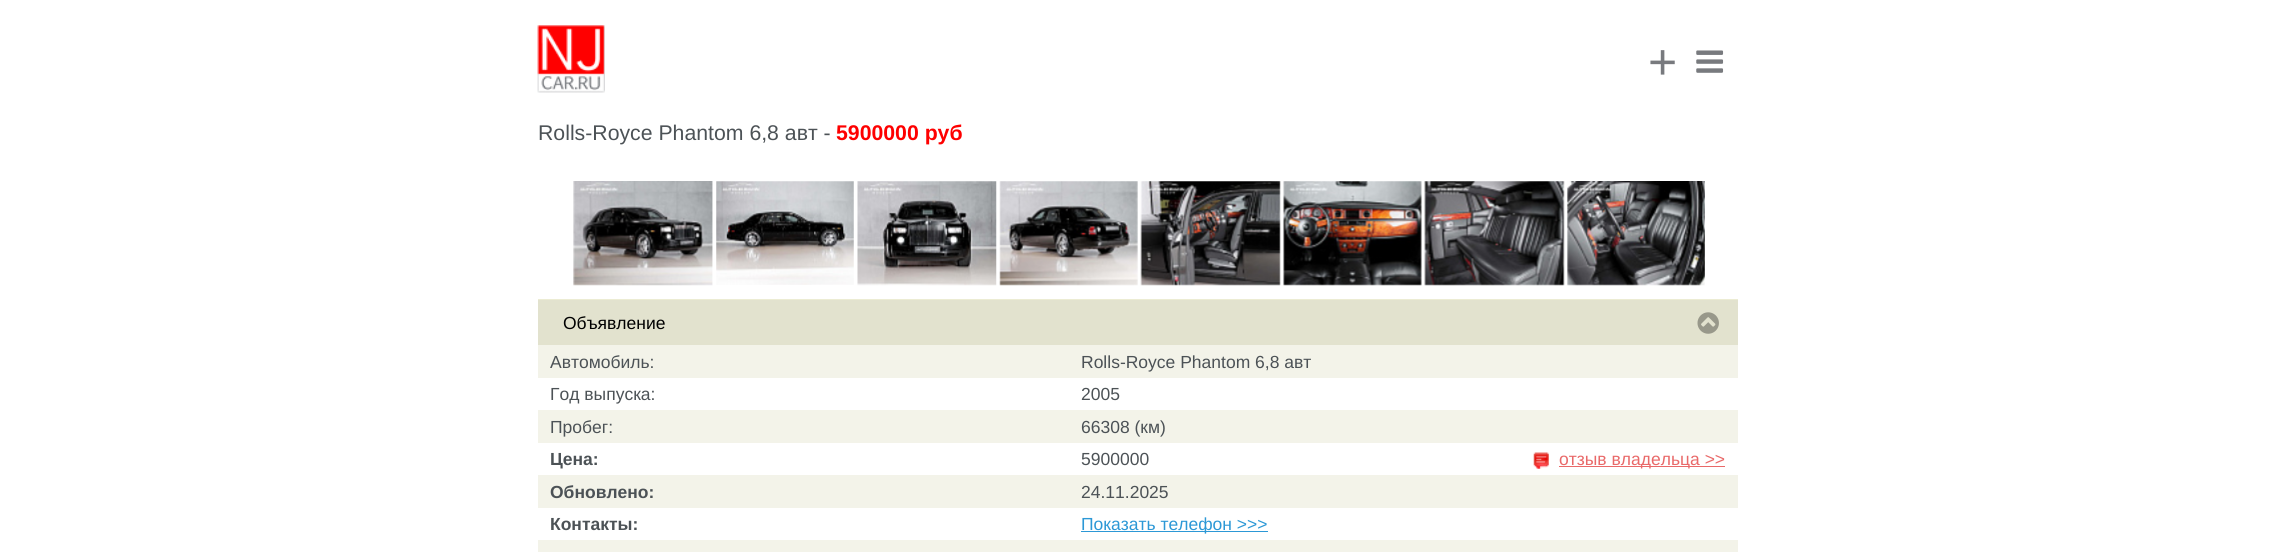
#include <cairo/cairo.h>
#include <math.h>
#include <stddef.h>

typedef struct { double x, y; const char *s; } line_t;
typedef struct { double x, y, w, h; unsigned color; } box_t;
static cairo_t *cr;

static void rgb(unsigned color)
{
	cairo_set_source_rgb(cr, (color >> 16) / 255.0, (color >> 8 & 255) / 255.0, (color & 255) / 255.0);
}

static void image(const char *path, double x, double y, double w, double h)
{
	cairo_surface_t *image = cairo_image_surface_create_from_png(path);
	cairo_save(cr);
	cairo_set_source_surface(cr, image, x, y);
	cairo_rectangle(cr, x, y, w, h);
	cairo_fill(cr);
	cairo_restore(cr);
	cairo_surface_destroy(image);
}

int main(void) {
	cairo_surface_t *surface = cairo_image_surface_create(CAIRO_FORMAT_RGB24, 2275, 552);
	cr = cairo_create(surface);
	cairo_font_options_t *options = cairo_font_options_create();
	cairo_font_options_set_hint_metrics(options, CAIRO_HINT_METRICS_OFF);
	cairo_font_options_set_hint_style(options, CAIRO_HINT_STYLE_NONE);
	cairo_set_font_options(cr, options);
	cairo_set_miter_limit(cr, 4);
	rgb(0xffffff);
	cairo_paint(cr);
	image("img/1.png", 537, 25, 68, 68);
	image("img/2.png", 1696, 50, 28, 23);
	image("img/3.png", 573, 181, 140, 105);
	image("img/4.png", 716, 181, 138, 104);
	image("img/5.png", 857, 181, 140, 105);
	image("img/6.png", 999, 181, 139, 105);
	image("img/7.png", 1140, 181, 141, 105);
	image("img/8.png", 1283, 181, 139, 105);
	image("img/9.png", 1424, 181, 141, 105);
	image("img/10.png", 1567, 181, 138, 105);
	rgb(0xececd3);
	cairo_rectangle(cr, 538, 299, 1200, 1);
	cairo_fill(cr);
	rgb(0xe2e2ce);
	cairo_rectangle(cr, 538, 300, 1200, 45);
	cairo_fill(cr);
	image("img/11.png", 1697, 312, 22, 22);
	rgb(0xf3f3e9);
	cairo_rectangle(cr, 538, 345, 1200, 33);
	cairo_fill(cr);
	cairo_rectangle(cr, 538, 410, 1200, 33);
	cairo_fill(cr);
	image("img/12.png", 1533, 452, 16, 17);
	{
		static const box_t items[] = {
			{1559, 466, 166, 1, 0xe96969},
			{538, 475, 1200, 33, 0xf3f3e9},
			{1081, 531, 187, 1, 0x2c98d6},
			{538, 540, 1200, 12, 0xf3f3e9},
		};
		for (size_t i = 0; i < sizeof items / sizeof *items; i++) {
			rgb(items[i].color);
			cairo_rectangle(cr, items[i].x, items[i].y, items[i].w, items[i].h);
			cairo_fill(cr);
		}
	}
	cairo_select_font_face(cr, "Liberation Sans", CAIRO_FONT_SLANT_NORMAL, CAIRO_FONT_WEIGHT_NORMAL);
	cairo_set_font_size(cr, 50);
	rgb(0x787a7e);
	cairo_move_to(cr, 1648, 79);
	cairo_show_text(cr, "+");
	cairo_set_font_size(cr, 21.25);
	rgb(0x4c5256);
	cairo_move_to(cr, 538, 140);
	cairo_show_text(cr, "Rolls-Royce Phantom 6,8 авт -");
	cairo_select_font_face(cr, "Liberation Sans", CAIRO_FONT_SLANT_NORMAL, CAIRO_FONT_WEIGHT_BOLD);
	rgb(0xfe0000);
	cairo_move_to(cr, 836, 140);
	cairo_show_text(cr, "5900000 руб");
	cairo_select_font_face(cr, "Liberation Sans", CAIRO_FONT_SLANT_NORMAL, CAIRO_FONT_WEIGHT_NORMAL);
	cairo_set_font_size(cr, 17.5);
	rgb(0x000000);
	cairo_move_to(cr, 563, 329);
	cairo_show_text(cr, "Объявление");
	rgb(0x4c5256);
	{
		static const line_t items[] = {
			{550, 368, "Автомобиль:"},
			{1081, 368, "Rolls-Royce Phantom 6,8 авт"},
			{550, 400, "Год выпуска:"},
			{1081, 400, "2005"},
			{550, 433, "Пробег:"},
			{1081, 433, "66308 (км)"},
		};
		for (size_t i = 0; i < sizeof items / sizeof *items; i++) {
			cairo_move_to(cr, items[i].x, items[i].y);
			cairo_show_text(cr, items[i].s);
		}
	}
	cairo_select_font_face(cr, "Liberation Sans", CAIRO_FONT_SLANT_NORMAL, CAIRO_FONT_WEIGHT_BOLD);
	cairo_move_to(cr, 550, 465);
	cairo_show_text(cr, "Цена:");
	cairo_select_font_face(cr, "Liberation Sans", CAIRO_FONT_SLANT_NORMAL, CAIRO_FONT_WEIGHT_NORMAL);
	cairo_move_to(cr, 1081, 465);
	cairo_show_text(cr, "5900000");
	rgb(0xe96969);
	cairo_move_to(cr, 1559, 465);
	cairo_show_text(cr, "отзыв владельца >>");
	cairo_select_font_face(cr, "Liberation Sans", CAIRO_FONT_SLANT_NORMAL, CAIRO_FONT_WEIGHT_BOLD);
	rgb(0x4c5256);
	cairo_move_to(cr, 550, 498);
	cairo_show_text(cr, "Обновлено:");
	cairo_select_font_face(cr, "Liberation Sans", CAIRO_FONT_SLANT_NORMAL, CAIRO_FONT_WEIGHT_NORMAL);
	cairo_move_to(cr, 1081, 498);
	cairo_show_text(cr, "24.11.2025");
	cairo_select_font_face(cr, "Liberation Sans", CAIRO_FONT_SLANT_NORMAL, CAIRO_FONT_WEIGHT_BOLD);
	cairo_move_to(cr, 550, 530);
	cairo_show_text(cr, "Контакты:");
	cairo_select_font_face(cr, "Liberation Sans", CAIRO_FONT_SLANT_NORMAL, CAIRO_FONT_WEIGHT_NORMAL);
	rgb(0x2c98d6);
	cairo_move_to(cr, 1081, 530);
	cairo_show_text(cr, "Показать телефон >>>");
	cairo_surface_write_to_png(surface, "page.png");
	cairo_font_options_destroy(options);
	cairo_destroy(cr);
	cairo_surface_destroy(surface);
	return 0;
}
